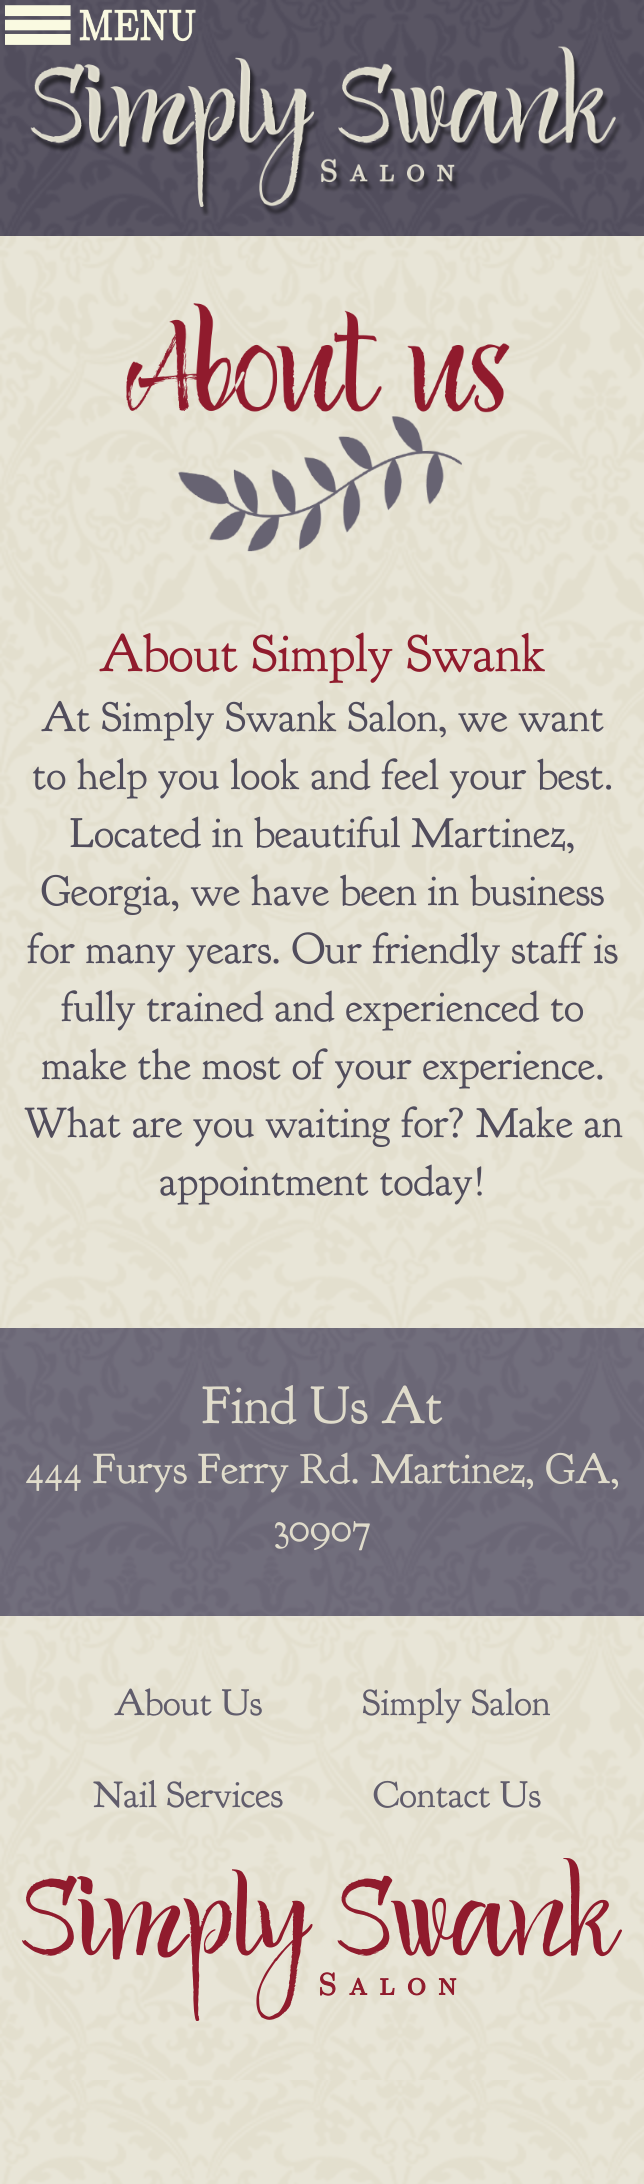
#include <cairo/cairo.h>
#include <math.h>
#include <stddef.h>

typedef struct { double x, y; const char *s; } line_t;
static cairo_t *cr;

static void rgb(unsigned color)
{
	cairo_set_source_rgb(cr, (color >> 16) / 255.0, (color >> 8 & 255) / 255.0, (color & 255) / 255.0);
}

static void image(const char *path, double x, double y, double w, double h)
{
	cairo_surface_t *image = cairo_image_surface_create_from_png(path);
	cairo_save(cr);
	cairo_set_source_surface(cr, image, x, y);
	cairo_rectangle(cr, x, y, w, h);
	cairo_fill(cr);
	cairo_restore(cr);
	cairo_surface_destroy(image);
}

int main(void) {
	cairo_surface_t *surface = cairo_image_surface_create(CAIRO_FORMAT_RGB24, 644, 2184);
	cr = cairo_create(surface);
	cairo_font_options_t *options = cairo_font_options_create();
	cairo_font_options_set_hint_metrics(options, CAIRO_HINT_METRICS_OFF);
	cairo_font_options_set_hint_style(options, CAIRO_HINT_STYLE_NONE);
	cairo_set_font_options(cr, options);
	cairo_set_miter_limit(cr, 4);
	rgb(0xe3dfce);
	cairo_paint(cr);
	image("img/1.png", 0, 2080, 644, 104);
	rgb(0x514d5c);
	cairo_rectangle(cr, 0, 0, 644, 236);
	cairo_fill(cr);
	image("img/2.png", 0, 0, 644, 236);
	image("img/3.png", 5, 5, 191, 40);
	image("img/4.png", 30, 46, 592, 170);
	image("img/5.png", 0, 236, 644, 1092);
	image("img/6.png", 126, 303, 384, 249);
	rgb(0x6b6776);
	cairo_rectangle(cr, 0, 1328, 644, 288);
	cairo_fill(cr);
	image("img/7.png", 0, 1328, 644, 288);
	image("img/8.png", 0, 1616, 644, 464);
	image("img/9.png", 22, 1858, 600, 163);
	cairo_select_font_face(cr, "Goudy Bookletter 1911", CAIRO_FONT_SLANT_NORMAL, CAIRO_FONT_WEIGHT_NORMAL);
	cairo_set_font_size(cr, 53.25);
	rgb(0x901b2d);
	cairo_move_to(cr, 99, 671);
	cairo_show_text(cr, "About Simply Swank");
	cairo_set_font_size(cr, 42.7);
	rgb(0x514d5c);
	{
		static const line_t items[] = {
			{41, 731, "At Simply Swank Salon, we want"},
			{32, 789, "to help you look and feel your best."},
			{70, 847, "Located in beautiful Martinez,"},
			{41, 905, "Georgia, we have been in business"},
			{27, 963, "for many years. Our friendly staff is"},
			{61, 1021, "fully trained and experienced to"},
			{41, 1079, "make the most of your experience."},
			{24, 1137, "What are you waiting for? Make an"},
			{159, 1195, "appointment today!"},
		};
		for (size_t i = 0; i < sizeof items / sizeof *items; i++) {
			cairo_move_to(cr, items[i].x, items[i].y);
			cairo_show_text(cr, items[i].s);
		}
	}
	cairo_set_font_size(cr, 53.25);
	rgb(0xe0dccb);
	cairo_move_to(cr, 202, 1423);
	cairo_show_text(cr, "Find Us At");
	cairo_set_font_size(cr, 42.7);
	cairo_move_to(cr, 25, 1483);
	cairo_show_text(cr, "444 Furys Ferry Rd. Martinez, GA,");
	cairo_move_to(cr, 274, 1541);
	cairo_show_text(cr, "30907");
	cairo_set_font_size(cr, 37.5);
	rgb(0x615d6c);
	{
		static const line_t items[] = {
			{114, 1715, "About Us"},
			{362, 1715, "Simply Salon"},
			{93, 1807, "Nail Services"},
			{373, 1807, "Contact Us"},
		};
		for (size_t i = 0; i < sizeof items / sizeof *items; i++) {
			cairo_move_to(cr, items[i].x, items[i].y);
			cairo_show_text(cr, items[i].s);
		}
	}
	cairo_surface_write_to_png(surface, "page.png");
	cairo_font_options_destroy(options);
	cairo_destroy(cr);
	cairo_surface_destroy(surface);
	return 0;
}
